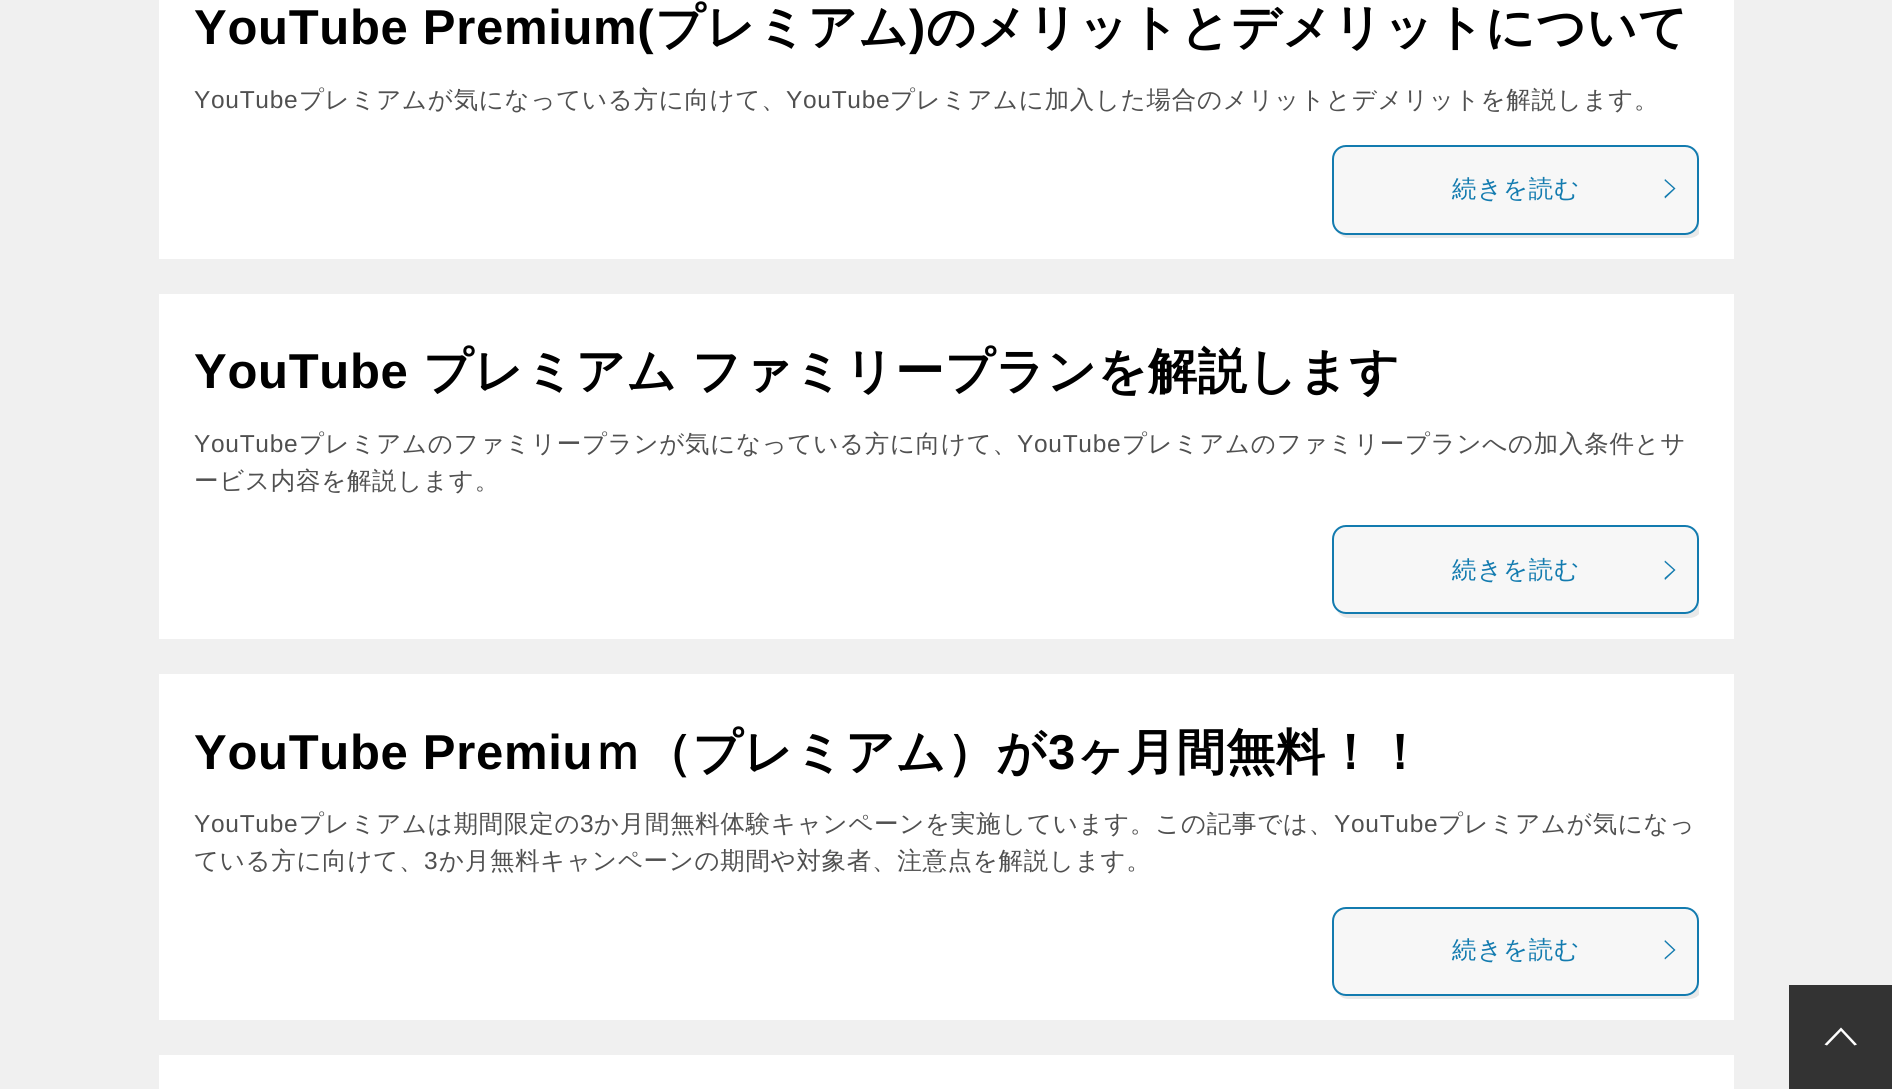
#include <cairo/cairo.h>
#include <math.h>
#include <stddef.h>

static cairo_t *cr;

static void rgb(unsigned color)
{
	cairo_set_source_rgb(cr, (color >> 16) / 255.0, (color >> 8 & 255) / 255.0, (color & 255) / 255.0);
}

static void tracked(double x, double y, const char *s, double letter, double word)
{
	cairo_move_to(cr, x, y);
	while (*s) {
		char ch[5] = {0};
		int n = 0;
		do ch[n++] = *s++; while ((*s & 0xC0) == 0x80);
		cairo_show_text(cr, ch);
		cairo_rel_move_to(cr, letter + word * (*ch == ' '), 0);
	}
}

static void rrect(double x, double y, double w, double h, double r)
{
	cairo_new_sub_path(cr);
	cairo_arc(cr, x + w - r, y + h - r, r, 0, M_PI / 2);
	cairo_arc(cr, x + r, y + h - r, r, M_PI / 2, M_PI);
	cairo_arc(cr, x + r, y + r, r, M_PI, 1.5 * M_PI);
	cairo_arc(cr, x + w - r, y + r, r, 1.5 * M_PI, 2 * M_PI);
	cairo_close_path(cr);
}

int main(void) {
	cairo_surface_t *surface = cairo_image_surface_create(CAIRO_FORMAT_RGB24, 1892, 1089);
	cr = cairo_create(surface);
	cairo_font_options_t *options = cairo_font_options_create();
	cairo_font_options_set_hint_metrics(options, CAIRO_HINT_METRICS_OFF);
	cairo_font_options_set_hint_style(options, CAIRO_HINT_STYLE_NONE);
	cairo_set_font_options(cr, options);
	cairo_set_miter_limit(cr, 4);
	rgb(0xf0f0f0);
	cairo_paint(cr);
	rgb(0xffffff);
	cairo_rectangle(cr, 159, 0, 1575, 259);
	cairo_fill(cr);
	cairo_save(cr);
	cairo_rectangle(cr, 194, 0, 1505, 259);
	cairo_clip(cr);
	rgb(0xe9e9e9);
	cairo_new_path(cr);
	cairo_move_to(cr, 1337, 232);
	cairo_curve_to(cr, 1340, 235, 1344, 238, 1349, 238);
	cairo_line_to(cr, 1689, 238);
	cairo_curve_to(cr, 1697, 238, 1703, 232, 1703, 224);
	cairo_line_to(cr, 1703, 163);
	cairo_curve_to(cr, 1703, 158, 1701, 154, 1697, 151);
	cairo_curve_to(cr, 1698, 154, 1699, 156, 1699, 159);
	cairo_line_to(cr, 1699, 220);
	cairo_curve_to(cr, 1699, 228, 1693, 234, 1685, 234);
	cairo_line_to(cr, 1346, 234);
	cairo_curve_to(cr, 1343, 234, 1340, 233, 1337, 232);
	cairo_close_path(cr);
	cairo_fill(cr);
	cairo_restore(cr);
	rgb(0xf7f7f7);
	rrect(1333, 146, 365, 88, 13);
	cairo_fill_preserve(cr);
	rgb(0x137baf);
	cairo_stroke(cr);
	cairo_new_path(cr);
	cairo_move_to(cr, 1665, 198.5);
	cairo_line_to(cr, 1664.5, 196.5);
	cairo_line_to(cr, 1673.5, 188.5);
	cairo_line_to(cr, 1664.5, 180.5);
	cairo_line_to(cr, 1665, 179);
	cairo_line_to(cr, 1675.5, 188.5);
	cairo_close_path(cr);
	cairo_fill(cr);
	rgb(0xffffff);
	cairo_rectangle(cr, 159, 294, 1575, 345);
	cairo_fill(cr);
	cairo_save(cr);
	cairo_rectangle(cr, 194, 329, 1505, 310);
	cairo_clip(cr);
	rgb(0xe9e9e9);
	cairo_new_path(cr);
	cairo_move_to(cr, 1337, 611);
	cairo_curve_to(cr, 1339, 615, 1344, 618, 1349, 618);
	cairo_line_to(cr, 1689, 618);
	cairo_curve_to(cr, 1697, 618, 1703, 612, 1703, 604);
	cairo_line_to(cr, 1703, 543);
	cairo_curve_to(cr, 1703, 538, 1701, 534, 1697, 532);
	cairo_curve_to(cr, 1698, 534, 1699, 536, 1699, 539);
	cairo_line_to(cr, 1699, 600);
	cairo_curve_to(cr, 1699, 608, 1693, 614, 1685, 614);
	cairo_line_to(cr, 1346, 614);
	cairo_curve_to(cr, 1342, 614, 1339, 613, 1337, 611);
	cairo_close_path(cr);
	cairo_fill(cr);
	cairo_restore(cr);
	rgb(0xf7f7f7);
	rrect(1333, 526, 365, 87, 13);
	cairo_fill_preserve(cr);
	rgb(0x137baf);
	cairo_stroke(cr);
	cairo_new_path(cr);
	cairo_move_to(cr, 1665, 580);
	cairo_line_to(cr, 1664.5, 578);
	cairo_line_to(cr, 1673.5, 570);
	cairo_line_to(cr, 1664.5, 562);
	cairo_line_to(cr, 1665, 560.5);
	cairo_line_to(cr, 1675.5, 570);
	cairo_close_path(cr);
	cairo_fill(cr);
	rgb(0xffffff);
	cairo_rectangle(cr, 159, 674, 1575, 346);
	cairo_fill(cr);
	cairo_save(cr);
	cairo_rectangle(cr, 194, 709, 1505, 311);
	cairo_clip(cr);
	rgb(0xe9e9e9);
	cairo_new_path(cr);
	cairo_move_to(cr, 1338, 993);
	cairo_curve_to(cr, 1340, 997, 1344, 999, 1349, 999);
	cairo_line_to(cr, 1689, 999);
	cairo_curve_to(cr, 1697, 999, 1703, 993, 1703, 985);
	cairo_line_to(cr, 1703, 924);
	cairo_curve_to(cr, 1703, 919, 1700, 915, 1697, 912);
	cairo_curve_to(cr, 1698, 915, 1699, 917, 1699, 920);
	cairo_line_to(cr, 1699, 982);
	cairo_curve_to(cr, 1699, 989, 1693, 996, 1685, 996);
	cairo_line_to(cr, 1346, 996);
	cairo_curve_to(cr, 1343, 996, 1340, 995, 1338, 993);
	cairo_close_path(cr);
	cairo_fill(cr);
	cairo_restore(cr);
	rgb(0xf7f7f7);
	rrect(1333, 908, 365, 87, 13);
	cairo_fill_preserve(cr);
	rgb(0x137baf);
	cairo_stroke(cr);
	cairo_new_path(cr);
	cairo_move_to(cr, 1665, 959.5);
	cairo_line_to(cr, 1664.5, 958);
	cairo_line_to(cr, 1673.5, 950);
	cairo_line_to(cr, 1664.5, 941.5);
	cairo_line_to(cr, 1665, 940);
	cairo_line_to(cr, 1675.5, 950);
	cairo_close_path(cr);
	cairo_fill(cr);
	rgb(0xffffff);
	cairo_rectangle(cr, 159, 1055, 1575, 34);
	cairo_fill(cr);
	rgb(0x333333);
	cairo_rectangle(cr, 1789, 985, 103, 104);
	cairo_fill(cr);
	rgb(0xffffff);
	cairo_new_path(cr);
	cairo_move_to(cr, 1841, 1027.5);
	cairo_line_to(cr, 1857, 1044.5);
	cairo_line_to(cr, 1854.5, 1045.5);
	cairo_line_to(cr, 1841, 1031);
	cairo_line_to(cr, 1827, 1045.5);
	cairo_line_to(cr, 1824.5, 1044.5);
	cairo_close_path(cr);
	cairo_fill(cr);
	cairo_select_font_face(cr, "Liberation Sans", CAIRO_FONT_SLANT_NORMAL, CAIRO_FONT_WEIGHT_BOLD);
	cairo_set_font_size(cr, 49);
	rgb(0x000000);
	tracked(194, 44, "YouTube Premium(", 0.7, 0);
	cairo_select_font_face(cr, "WenQuanYi Zen Hei", CAIRO_FONT_SLANT_NORMAL, CAIRO_FONT_WEIGHT_BOLD);
	tracked(655, 44, "プレミアム", 0.7, 0);
	cairo_select_font_face(cr, "Liberation Sans", CAIRO_FONT_SLANT_NORMAL, CAIRO_FONT_WEIGHT_BOLD);
	tracked(909, 44, ")", 0.7, 0);
	cairo_select_font_face(cr, "WenQuanYi Zen Hei", CAIRO_FONT_SLANT_NORMAL, CAIRO_FONT_WEIGHT_BOLD);
	tracked(926, 44, "のメリットとデメリットについて", 0.7, 0);
	cairo_select_font_face(cr, "Liberation Sans", CAIRO_FONT_SLANT_NORMAL, CAIRO_FONT_WEIGHT_NORMAL);
	cairo_set_font_size(cr, 24.5);
	rgb(0x505050);
	tracked(194, 108, "YouTube", 0.7, 0);
	cairo_select_font_face(cr, "WenQuanYi Zen Hei Medium", CAIRO_FONT_SLANT_NORMAL, CAIRO_FONT_WEIGHT_NORMAL);
	tracked(299, 108, "プレミアムが気になっている方に向けて、", 0.7, 0);
	cairo_select_font_face(cr, "Liberation Sans", CAIRO_FONT_SLANT_NORMAL, CAIRO_FONT_WEIGHT_NORMAL);
	tracked(786, 108, "YouTube", 0.7, 0);
	cairo_select_font_face(cr, "WenQuanYi Zen Hei Medium", CAIRO_FONT_SLANT_NORMAL, CAIRO_FONT_WEIGHT_NORMAL);
	tracked(890, 108, "プレミアムに加入した場合のメリットとデメリットを解説します。", 0.7, 0);
	rgb(0x137baf);
	tracked(1452, 197, "続きを読む", 0.7, 0);
	cairo_select_font_face(cr, "Liberation Sans", CAIRO_FONT_SLANT_NORMAL, CAIRO_FONT_WEIGHT_BOLD);
	cairo_set_font_size(cr, 49);
	rgb(0x000000);
	tracked(194, 388, "YouTube", 0.7, 0);
	cairo_select_font_face(cr, "WenQuanYi Zen Hei", CAIRO_FONT_SLANT_NORMAL, CAIRO_FONT_WEIGHT_BOLD);
	tracked(423, 388, "プレミアム ファミリープランを解説します", 0.7, -1);
	cairo_select_font_face(cr, "Liberation Sans", CAIRO_FONT_SLANT_NORMAL, CAIRO_FONT_WEIGHT_NORMAL);
	cairo_set_font_size(cr, 24.5);
	rgb(0x505050);
	tracked(194, 452, "YouTube", 0.7, 0);
	cairo_select_font_face(cr, "WenQuanYi Zen Hei Medium", CAIRO_FONT_SLANT_NORMAL, CAIRO_FONT_WEIGHT_NORMAL);
	tracked(299, 452, "プレミアムのファミリープランが気になっている方に向けて、", 0.7, 0);
	cairo_select_font_face(cr, "Liberation Sans", CAIRO_FONT_SLANT_NORMAL, CAIRO_FONT_WEIGHT_NORMAL);
	tracked(1017, 452, "YouTube", 0.7, 0);
	cairo_select_font_face(cr, "WenQuanYi Zen Hei Medium", CAIRO_FONT_SLANT_NORMAL, CAIRO_FONT_WEIGHT_NORMAL);
	tracked(1122, 452, "プレミアムのファミリープランへの加入条件とサ", 0.7, 0);
	tracked(194, 489, "ービス内容を解説します。", 0.7, 0);
	rgb(0x137baf);
	tracked(1452, 578, "続きを読む", 0.7, 0);
	cairo_select_font_face(cr, "Liberation Sans", CAIRO_FONT_SLANT_NORMAL, CAIRO_FONT_WEIGHT_BOLD);
	cairo_set_font_size(cr, 49);
	rgb(0x000000);
	tracked(194, 769, "YouTube Premiu", 0.7, 0);
	cairo_select_font_face(cr, "WenQuanYi Zen Hei", CAIRO_FONT_SLANT_NORMAL, CAIRO_FONT_WEIGHT_BOLD);
	tracked(593, 769, "ｍ（プレミアム）が", 0.7, 0);
	cairo_select_font_face(cr, "Liberation Sans", CAIRO_FONT_SLANT_NORMAL, CAIRO_FONT_WEIGHT_BOLD);
	tracked(1048, 769, "3", 0.7, 0);
	cairo_select_font_face(cr, "WenQuanYi Zen Hei", CAIRO_FONT_SLANT_NORMAL, CAIRO_FONT_WEIGHT_BOLD);
	tracked(1076, 769, "ヶ月間無料！！", 0.7, 0);
	cairo_select_font_face(cr, "Liberation Sans", CAIRO_FONT_SLANT_NORMAL, CAIRO_FONT_WEIGHT_NORMAL);
	cairo_set_font_size(cr, 24.5);
	rgb(0x505050);
	tracked(194, 832, "YouTube", 0.7, 0);
	cairo_select_font_face(cr, "WenQuanYi Zen Hei Medium", CAIRO_FONT_SLANT_NORMAL, CAIRO_FONT_WEIGHT_NORMAL);
	tracked(299, 832, "プレミアムは期間限定の", 0.7, 0);
	cairo_select_font_face(cr, "Liberation Sans", CAIRO_FONT_SLANT_NORMAL, CAIRO_FONT_WEIGHT_NORMAL);
	tracked(580, 832, "3", 0.7, 0);
	cairo_select_font_face(cr, "WenQuanYi Zen Hei Medium", CAIRO_FONT_SLANT_NORMAL, CAIRO_FONT_WEIGHT_NORMAL);
	tracked(594, 832, "か月間無料体験キャンペーンを実施しています。この記事では、", 0.7, 0);
	cairo_select_font_face(cr, "Liberation Sans", CAIRO_FONT_SLANT_NORMAL, CAIRO_FONT_WEIGHT_NORMAL);
	tracked(1334, 832, "YouTube", 0.7, 0);
	cairo_select_font_face(cr, "WenQuanYi Zen Hei Medium", CAIRO_FONT_SLANT_NORMAL, CAIRO_FONT_WEIGHT_NORMAL);
	tracked(1438, 832, "プレミアムが気になっ", 0.7, 0);
	tracked(194, 869, "ている方に向けて、", 0.7, 0);
	cairo_select_font_face(cr, "Liberation Sans", CAIRO_FONT_SLANT_NORMAL, CAIRO_FONT_WEIGHT_NORMAL);
	tracked(424, 869, "3", 0.7, 0);
	cairo_select_font_face(cr, "WenQuanYi Zen Hei Medium", CAIRO_FONT_SLANT_NORMAL, CAIRO_FONT_WEIGHT_NORMAL);
	tracked(439, 869, "か月無料キャンペーンの期間や対象者、注意点を解説します。", 0.7, 0);
	rgb(0x137baf);
	tracked(1452, 958, "続きを読む", 0.7, 0);
	cairo_surface_write_to_png(surface, "page.png");
	cairo_font_options_destroy(options);
	cairo_destroy(cr);
	cairo_surface_destroy(surface);
	return 0;
}
